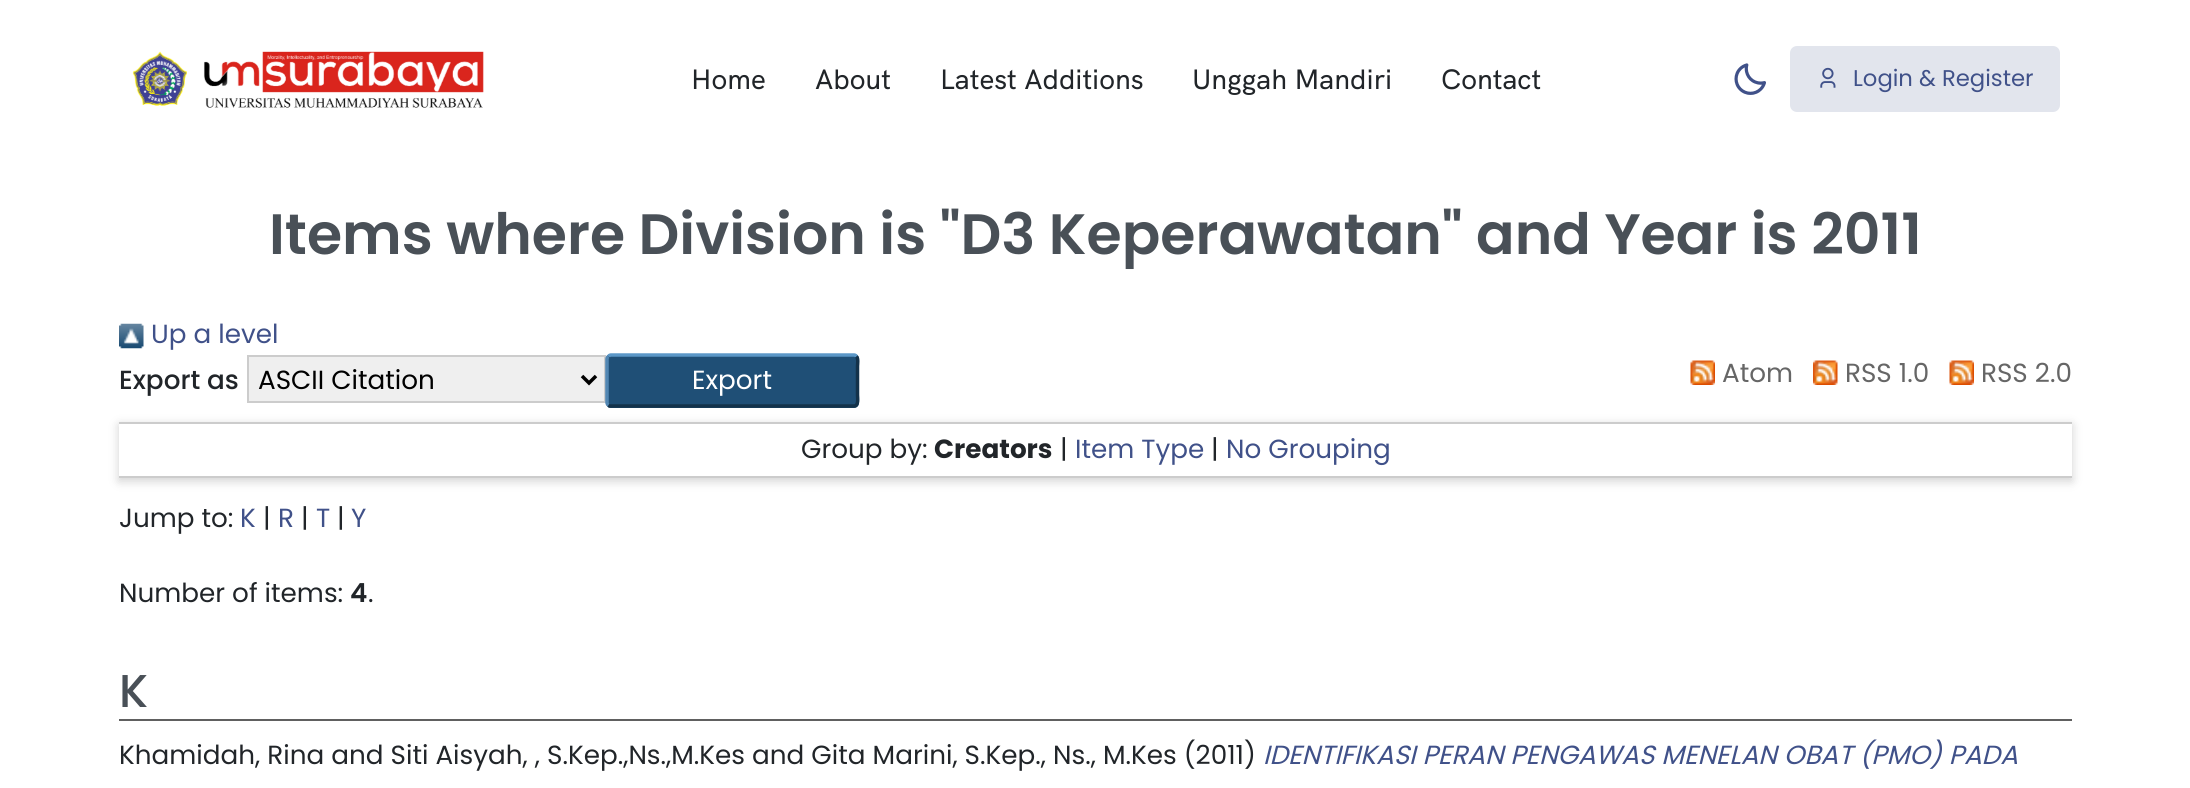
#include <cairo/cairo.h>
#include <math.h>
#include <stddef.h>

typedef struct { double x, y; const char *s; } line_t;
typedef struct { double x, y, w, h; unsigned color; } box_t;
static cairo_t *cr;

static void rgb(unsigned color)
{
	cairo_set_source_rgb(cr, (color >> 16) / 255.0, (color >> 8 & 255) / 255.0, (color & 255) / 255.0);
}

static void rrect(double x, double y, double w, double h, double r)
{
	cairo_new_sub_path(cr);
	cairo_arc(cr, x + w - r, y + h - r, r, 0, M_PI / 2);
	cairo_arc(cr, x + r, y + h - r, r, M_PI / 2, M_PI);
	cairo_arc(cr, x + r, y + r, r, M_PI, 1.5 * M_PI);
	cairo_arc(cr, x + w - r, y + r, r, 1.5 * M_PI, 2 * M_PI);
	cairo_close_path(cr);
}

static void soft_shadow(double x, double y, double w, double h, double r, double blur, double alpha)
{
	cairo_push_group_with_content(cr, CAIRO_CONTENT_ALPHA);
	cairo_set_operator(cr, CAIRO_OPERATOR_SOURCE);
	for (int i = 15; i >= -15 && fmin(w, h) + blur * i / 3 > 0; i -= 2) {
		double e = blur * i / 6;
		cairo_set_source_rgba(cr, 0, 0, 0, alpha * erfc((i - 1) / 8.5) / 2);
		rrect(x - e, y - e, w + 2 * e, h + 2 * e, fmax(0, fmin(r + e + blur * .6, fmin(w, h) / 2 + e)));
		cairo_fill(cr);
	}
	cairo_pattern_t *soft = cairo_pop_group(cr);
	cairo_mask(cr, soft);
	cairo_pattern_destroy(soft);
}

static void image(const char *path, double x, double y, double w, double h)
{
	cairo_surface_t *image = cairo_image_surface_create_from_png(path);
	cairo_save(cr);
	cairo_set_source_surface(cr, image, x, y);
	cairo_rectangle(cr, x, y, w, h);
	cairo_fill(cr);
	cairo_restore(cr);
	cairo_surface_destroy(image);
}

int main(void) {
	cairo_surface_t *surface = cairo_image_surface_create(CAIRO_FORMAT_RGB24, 2190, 788);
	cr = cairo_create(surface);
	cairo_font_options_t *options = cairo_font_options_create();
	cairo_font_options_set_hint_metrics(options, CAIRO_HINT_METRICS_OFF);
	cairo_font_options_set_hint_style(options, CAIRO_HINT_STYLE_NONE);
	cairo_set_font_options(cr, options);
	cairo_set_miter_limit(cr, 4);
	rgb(0xffffff);
	cairo_paint(cr);
	image("img/1.png", 132, 51, 352, 57);
	image("img/2.png", 1734, 63, 32, 32);
	rgb(0xe2e5ed);
	rrect(1790, 46, 270, 66, 7);
	cairo_fill(cr);
	image("img/3.png", 1820, 67, 16, 21);
	image("img/4.png", 119, 323, 25, 26);
	rgb(0xefefef);
	cairo_rectangle(cr, 248, 356, 357, 46);
	cairo_fill_preserve(cr);
	rgb(0xcccccc);
	cairo_stroke(cr);
	cairo_new_path(cr);
	cairo_move_to(cr, 582, 376);
	cairo_line_to(cr, 589, 383);
	cairo_line_to(cr, 596, 376);
	rgb(0x000000);
	cairo_set_line_width(cr, 3.5);
	cairo_stroke(cr);
	rgb(0x1f4f76);
	rrect(606, 354, 253, 54, 5);
	cairo_fill(cr);
	cairo_new_path(cr);
	cairo_move_to(cr, 608.5, 356.5);
	cairo_curve_to(cr, 609, 355.5, 610, 355, 611, 355);
	cairo_line_to(cr, 854, 355);
	cairo_curve_to(cr, 855, 355, 856, 355.5, 856.5, 356.5);
	rgb(0x5b97c7);
	cairo_stroke(cr);
	cairo_new_path(cr);
	cairo_move_to(cr, 856.5, 356.5);
	cairo_curve_to(cr, 858.5, 358.5, 857.5, 364.5, 857.5, 366);
	cairo_line_to(cr, 857.5, 395);
	cairo_curve_to(cr, 857.5, 397.5, 859, 406, 854, 406);
	cairo_line_to(cr, 609.5, 406);
	cairo_line_to(cr, 608.5, 405);
	rgb(0x13324a);
	cairo_stroke(cr);
	cairo_new_path(cr);
	cairo_move_to(cr, 608.5, 405);
	cairo_curve_to(cr, 607.5, 404.5, 607, 403.5, 607, 402.5);
	cairo_line_to(cr, 607, 359);
	cairo_curve_to(cr, 607, 358, 607.5, 357, 608.5, 356.5);
	rgb(0x5287b3);
	cairo_stroke(cr);
	image("img/5.png", 1690, 360, 25, 25);
	image("img/6.png", 1813, 360, 25, 25);
	image("img/5.png", 1949, 360, 25, 25);
	rgb(0x646464);
	soft_shadow(119, 425, 1953, 56, 0, 5, 0.3);
	{
		static const box_t items[] = {
			{119, 424, 1953, 52, 0xffffff},
			{119, 422, 1953, 2, 0xcccccc},
			{119, 476, 1953, 2, 0xcccccc},
			{119, 719, 1953, 2, 0x606060},
		};
		for (size_t i = 0; i < sizeof items / sizeof *items; i++) {
			rgb(items[i].color);
			cairo_rectangle(cr, items[i].x, items[i].y, items[i].w, items[i].h);
			cairo_fill(cr);
		}
	}
	cairo_select_font_face(cr, "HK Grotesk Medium", CAIRO_FONT_SLANT_NORMAL, CAIRO_FONT_WEIGHT_NORMAL);
	cairo_set_font_size(cr, 28);
	rgb(0x212529);
	{
		static const line_t items[] = {
			{691, 89, "Home"},
			{815, 89, "About"},
			{940, 89, "Latest Additions"},
			{1192, 89, "Unggah Mandiri"},
			{1441, 89, "Contact"},
		};
		for (size_t i = 0; i < sizeof items / sizeof *items; i++) {
			cairo_move_to(cr, items[i].x, items[i].y);
			cairo_show_text(cr, items[i].s);
		}
	}
	cairo_select_font_face(cr, "Poppins", CAIRO_FONT_SLANT_NORMAL, CAIRO_FONT_WEIGHT_NORMAL);
	cairo_set_font_size(cr, 22.75);
	rgb(0x405189);
	cairo_move_to(cr, 1853, 86);
	cairo_show_text(cr, "Login & Register");
	cairo_select_font_face(cr, "Poppins SemiBold", CAIRO_FONT_SLANT_NORMAL, CAIRO_FONT_WEIGHT_NORMAL);
	cairo_set_font_size(cr, 56.9);
	rgb(0x495057);
	cairo_move_to(cr, 269, 254);
	cairo_show_text(cr, "Items where Division is \"D3 Keperawatan\" and Year is 2011");
	cairo_select_font_face(cr, "Poppins", CAIRO_FONT_SLANT_NORMAL, CAIRO_FONT_WEIGHT_NORMAL);
	cairo_set_font_size(cr, 26.25);
	rgb(0x405189);
	cairo_move_to(cr, 151, 343);
	cairo_show_text(cr, "Up a level");
	cairo_select_font_face(cr, "Poppins Medium", CAIRO_FONT_SLANT_NORMAL, CAIRO_FONT_WEIGHT_NORMAL);
	rgb(0x212529);
	cairo_move_to(cr, 119, 389);
	cairo_show_text(cr, "Export as");
	cairo_select_font_face(cr, "Poppins", CAIRO_FONT_SLANT_NORMAL, CAIRO_FONT_WEIGHT_NORMAL);
	rgb(0x000000);
	cairo_move_to(cr, 258, 389);
	cairo_show_text(cr, "ASCII Citation");
	rgb(0xffffff);
	cairo_move_to(cr, 692, 389);
	cairo_show_text(cr, "Export");
	rgb(0x666666);
	{
		static const line_t items[] = {
			{1722, 382, "Atom"},
			{1845, 382, "RSS 1.0"},
			{1981, 382, "RSS 2.0"},
		};
		for (size_t i = 0; i < sizeof items / sizeof *items; i++) {
			cairo_move_to(cr, items[i].x, items[i].y);
			cairo_show_text(cr, items[i].s);
		}
	}
	rgb(0x212529);
	cairo_move_to(cr, 801, 458);
	cairo_show_text(cr, "Group by:");
	cairo_select_font_face(cr, "Poppins", CAIRO_FONT_SLANT_NORMAL, CAIRO_FONT_WEIGHT_BOLD);
	cairo_move_to(cr, 934, 458);
	cairo_show_text(cr, "Creators");
	cairo_select_font_face(cr, "Poppins", CAIRO_FONT_SLANT_NORMAL, CAIRO_FONT_WEIGHT_NORMAL);
	cairo_move_to(cr, 1060, 458);
	cairo_show_text(cr, "|");
	rgb(0x405189);
	cairo_move_to(cr, 1075, 458);
	cairo_show_text(cr, "Item Type");
	rgb(0x212529);
	cairo_move_to(cr, 1211, 458);
	cairo_show_text(cr, "|");
	rgb(0x405189);
	cairo_move_to(cr, 1226, 458);
	cairo_show_text(cr, "No Grouping");
	rgb(0x212529);
	cairo_move_to(cr, 119, 527);
	cairo_show_text(cr, "Jump to:");
	rgb(0x405189);
	cairo_move_to(cr, 240, 527);
	cairo_show_text(cr, "K");
	rgb(0x212529);
	cairo_move_to(cr, 263, 527);
	cairo_show_text(cr, "|");
	rgb(0x405189);
	cairo_move_to(cr, 278, 527);
	cairo_show_text(cr, "R");
	rgb(0x212529);
	cairo_move_to(cr, 301, 527);
	cairo_show_text(cr, "|");
	rgb(0x405189);
	cairo_move_to(cr, 316, 527);
	cairo_show_text(cr, "T");
	rgb(0x212529);
	cairo_move_to(cr, 337, 527);
	cairo_show_text(cr, "|");
	rgb(0x405189);
	cairo_move_to(cr, 351, 527);
	cairo_show_text(cr, "Y");
	rgb(0x212529);
	cairo_move_to(cr, 119, 602);
	cairo_show_text(cr, "Number of items:");
	cairo_select_font_face(cr, "Poppins SemiBold", CAIRO_FONT_SLANT_NORMAL, CAIRO_FONT_WEIGHT_NORMAL);
	cairo_move_to(cr, 350, 602);
	cairo_show_text(cr, "4");
	cairo_select_font_face(cr, "Poppins", CAIRO_FONT_SLANT_NORMAL, CAIRO_FONT_WEIGHT_NORMAL);
	cairo_move_to(cr, 368, 602);
	cairo_show_text(cr, ".");
	cairo_select_font_face(cr, "Poppins Medium", CAIRO_FONT_SLANT_NORMAL, CAIRO_FONT_WEIGHT_NORMAL);
	cairo_set_font_size(cr, 46);
	rgb(0x495057);
	cairo_move_to(cr, 119, 707);
	cairo_show_text(cr, "K");
	cairo_select_font_face(cr, "Poppins", CAIRO_FONT_SLANT_NORMAL, CAIRO_FONT_WEIGHT_NORMAL);
	cairo_set_font_size(cr, 26.25);
	rgb(0x212529);
	cairo_move_to(cr, 119, 764);
	cairo_show_text(cr, "Khamidah, Rina and Siti Aisyah, , S.Kep.,Ns.,M.Kes and Gita Marini, S.Kep., Ns., M.Kes (2011)");
	cairo_select_font_face(cr, "Poppins", CAIRO_FONT_SLANT_ITALIC, CAIRO_FONT_WEIGHT_NORMAL);
	rgb(0x405189);
	cairo_move_to(cr, 1263, 764);
	cairo_show_text(cr, "IDENTIFIKASI PERAN PENGAWAS MENELAN OBAT (PMO) PADA");
	cairo_surface_write_to_png(surface, "page.png");
	cairo_font_options_destroy(options);
	cairo_destroy(cr);
	cairo_surface_destroy(surface);
	return 0;
}
